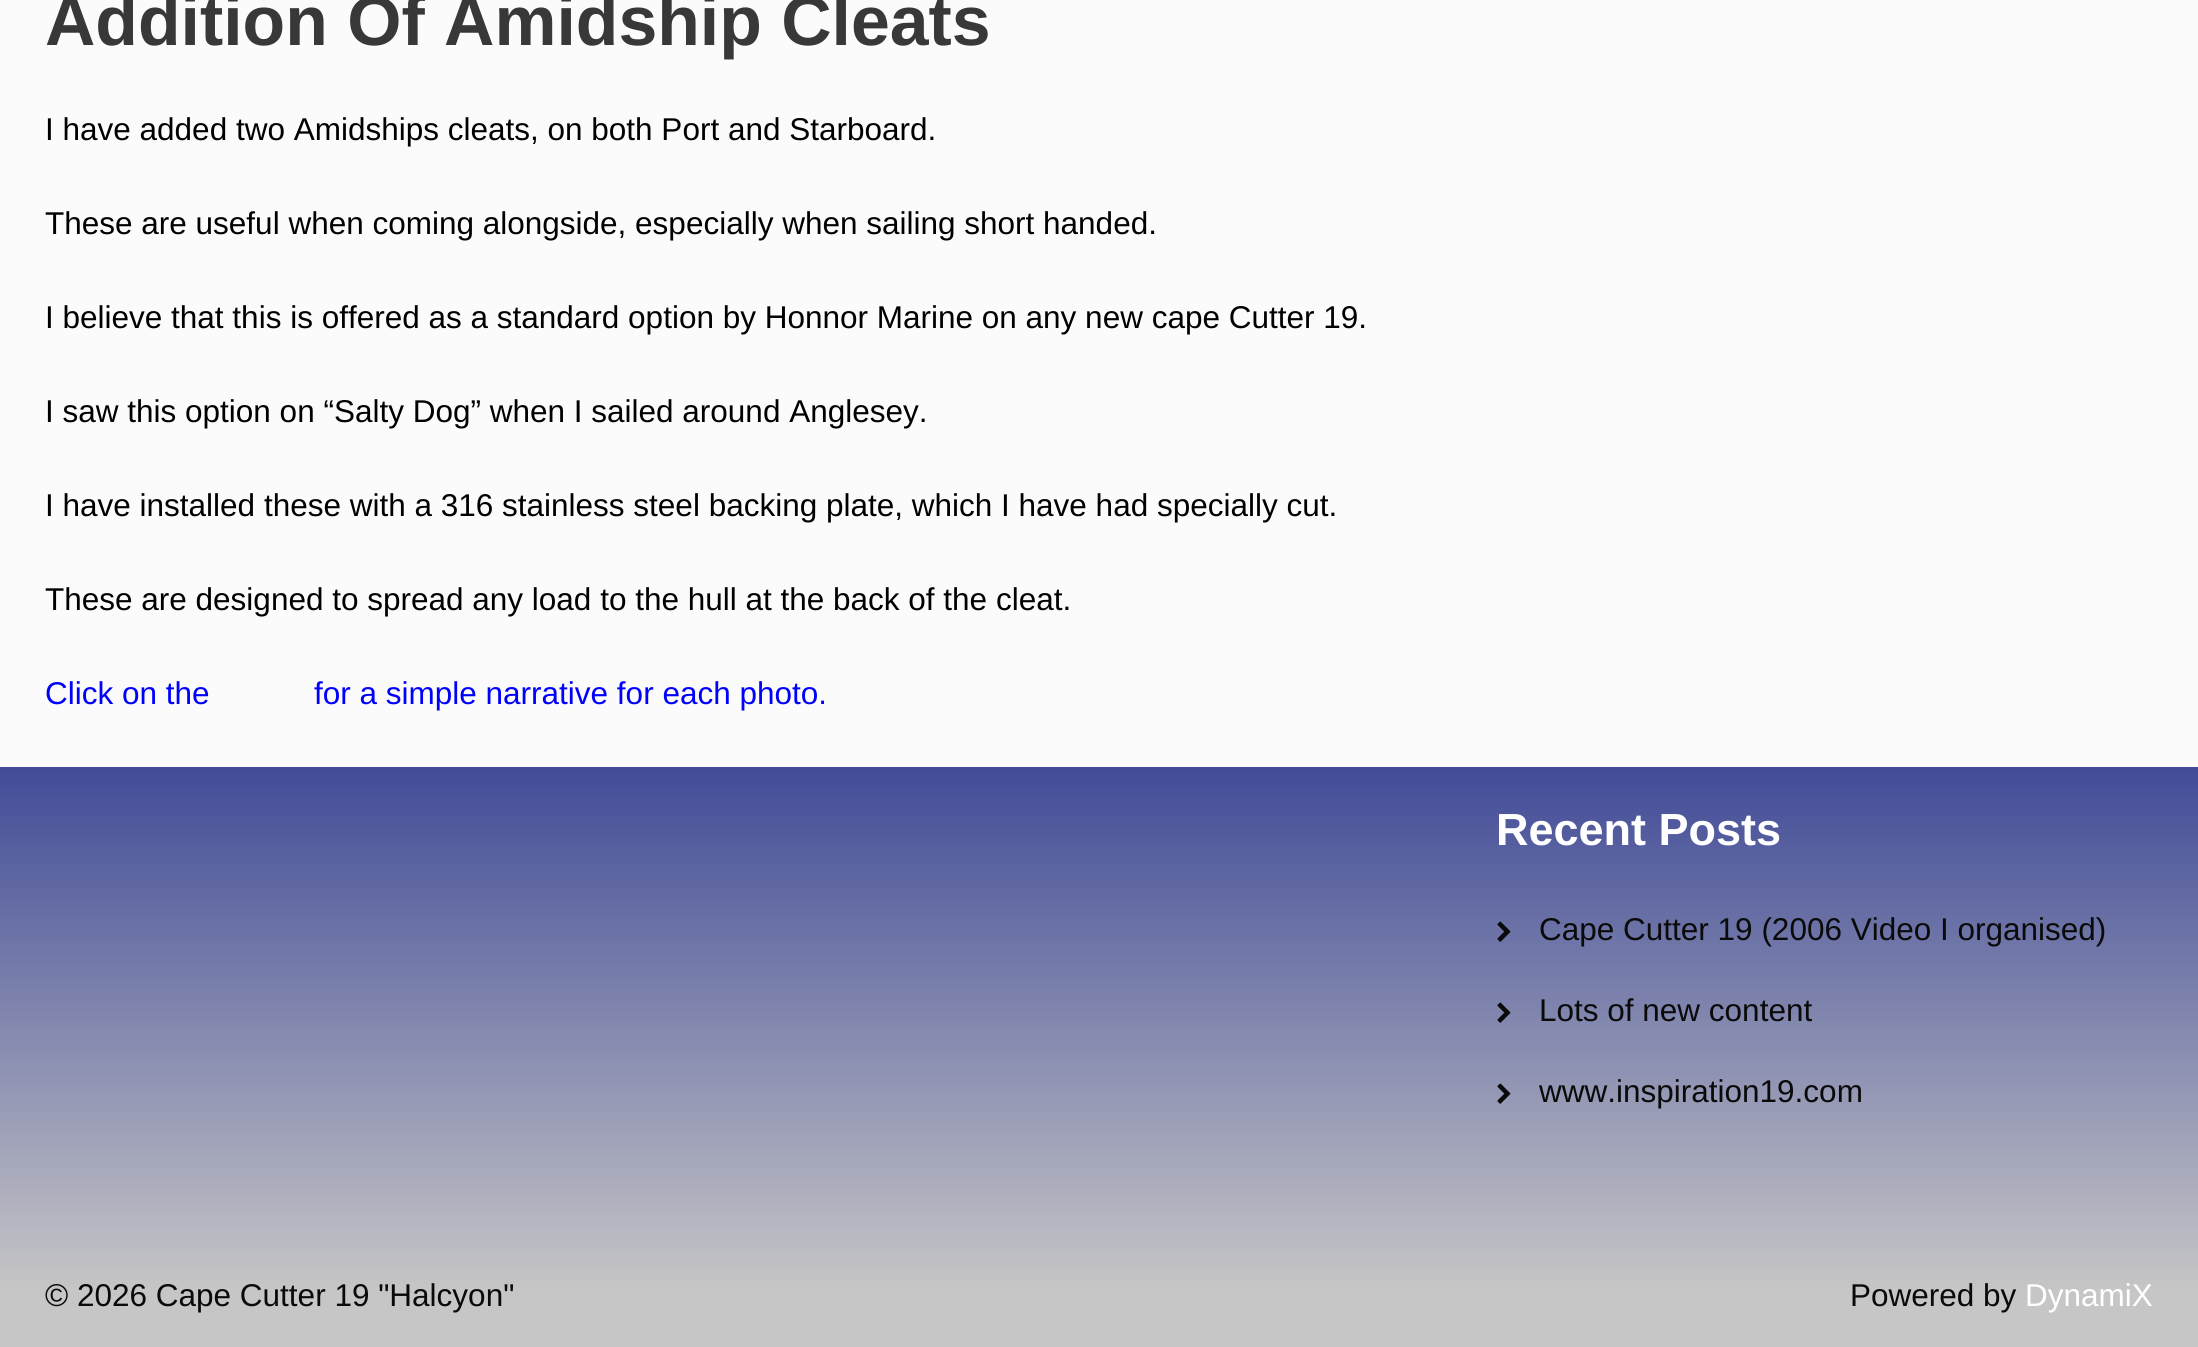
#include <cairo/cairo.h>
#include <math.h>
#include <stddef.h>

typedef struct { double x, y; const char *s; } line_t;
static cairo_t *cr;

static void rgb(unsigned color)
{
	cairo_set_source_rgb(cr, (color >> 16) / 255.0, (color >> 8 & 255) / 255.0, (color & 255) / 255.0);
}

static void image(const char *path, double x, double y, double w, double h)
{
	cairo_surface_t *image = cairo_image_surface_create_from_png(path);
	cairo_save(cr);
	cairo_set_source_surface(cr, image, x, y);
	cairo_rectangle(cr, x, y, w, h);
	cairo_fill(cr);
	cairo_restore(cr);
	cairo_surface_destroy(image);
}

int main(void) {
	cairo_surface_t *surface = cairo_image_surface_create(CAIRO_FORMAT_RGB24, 2198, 1347);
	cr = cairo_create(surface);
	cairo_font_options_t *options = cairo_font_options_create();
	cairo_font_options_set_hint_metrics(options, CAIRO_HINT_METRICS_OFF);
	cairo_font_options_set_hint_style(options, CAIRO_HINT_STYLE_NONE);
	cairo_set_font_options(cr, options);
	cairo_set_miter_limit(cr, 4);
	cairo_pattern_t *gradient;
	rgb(0xfbfbfb);
	cairo_paint(cr);
	gradient = cairo_pattern_create_linear(0, 767, 0, 1290);
	cairo_pattern_add_color_stop_rgba(gradient, 0, 0.259, 0.298, 0.596, 1);
	cairo_pattern_add_color_stop_rgba(gradient, 1, 0.776, 0.776, 0.776, 1);
	cairo_set_source(cr, gradient);
	cairo_pattern_destroy(gradient);
	cairo_rectangle(cr, 0, 767, 2198, 580);
	cairo_fill(cr);
	image("img/1.png", 1497, 921, 14, 21);
	image("img/2.png", 1497, 1002, 14, 21);
	image("img/3.png", 1497, 1083, 14, 21);
	cairo_select_font_face(cr, "Liberation Sans", CAIRO_FONT_SLANT_NORMAL, CAIRO_FONT_WEIGHT_BOLD);
	cairo_set_font_size(cr, 69.75);
	rgb(0x383838);
	cairo_move_to(cr, 45, 45);
	cairo_show_text(cr, "Addition Of Amidship Cleats");
	cairo_select_font_face(cr, "Liberation Sans", CAIRO_FONT_SLANT_NORMAL, CAIRO_FONT_WEIGHT_NORMAL);
	cairo_set_font_size(cr, 31.5);
	rgb(0x000000);
	{
		static const line_t items[] = {
			{45, 140, "I have added two Amidships cleats, on both Port and Starboard."},
			{45, 234, "These are useful when coming alongside, especially when sailing short handed."},
			{45, 328, "I believe that this is offered as a standard option by Honnor Marine on any new cape Cutter 19."},
			{45, 422, "I saw this option on “Salty Dog” when I sailed around Anglesey."},
			{45, 516, "I have installed these with a 316 stainless steel backing plate, which I have had specially cut."},
			{45, 610, "These are designed to spread any load to the hull at the back of the cleat."},
		};
		for (size_t i = 0; i < sizeof items / sizeof *items; i++) {
			cairo_move_to(cr, items[i].x, items[i].y);
			cairo_show_text(cr, items[i].s);
		}
	}
	rgb(0x0000ff);
	cairo_move_to(cr, 45, 704);
	cairo_show_text(cr, "Click on the");
	cairo_move_to(cr, 314, 704);
	cairo_show_text(cr, "for a simple narrative for each photo.");
	cairo_select_font_face(cr, "Liberation Sans", CAIRO_FONT_SLANT_NORMAL, CAIRO_FONT_WEIGHT_BOLD);
	cairo_set_font_size(cr, 45);
	rgb(0xffffff);
	cairo_move_to(cr, 1496, 845);
	cairo_show_text(cr, "Recent Posts");
	cairo_select_font_face(cr, "Liberation Sans", CAIRO_FONT_SLANT_NORMAL, CAIRO_FONT_WEIGHT_NORMAL);
	cairo_set_font_size(cr, 31.5);
	rgb(0x0a0a0a);
	{
		static const line_t items[] = {
			{1539, 940, "Cape Cutter 19 (2006 Video I organised)"},
			{1539, 1021, "Lots of new content"},
			{1539, 1102, "www.inspiration19.com"},
			{45, 1306, "© 2026 Cape Cutter 19 \"Halcyon\""},
			{1850, 1306, "Powered by"},
		};
		for (size_t i = 0; i < sizeof items / sizeof *items; i++) {
			cairo_move_to(cr, items[i].x, items[i].y);
			cairo_show_text(cr, items[i].s);
		}
	}
	rgb(0xffffff);
	cairo_move_to(cr, 2025, 1306);
	cairo_show_text(cr, "DynamiX");
	cairo_surface_write_to_png(surface, "page.png");
	cairo_font_options_destroy(options);
	cairo_destroy(cr);
	cairo_surface_destroy(surface);
	return 0;
}
